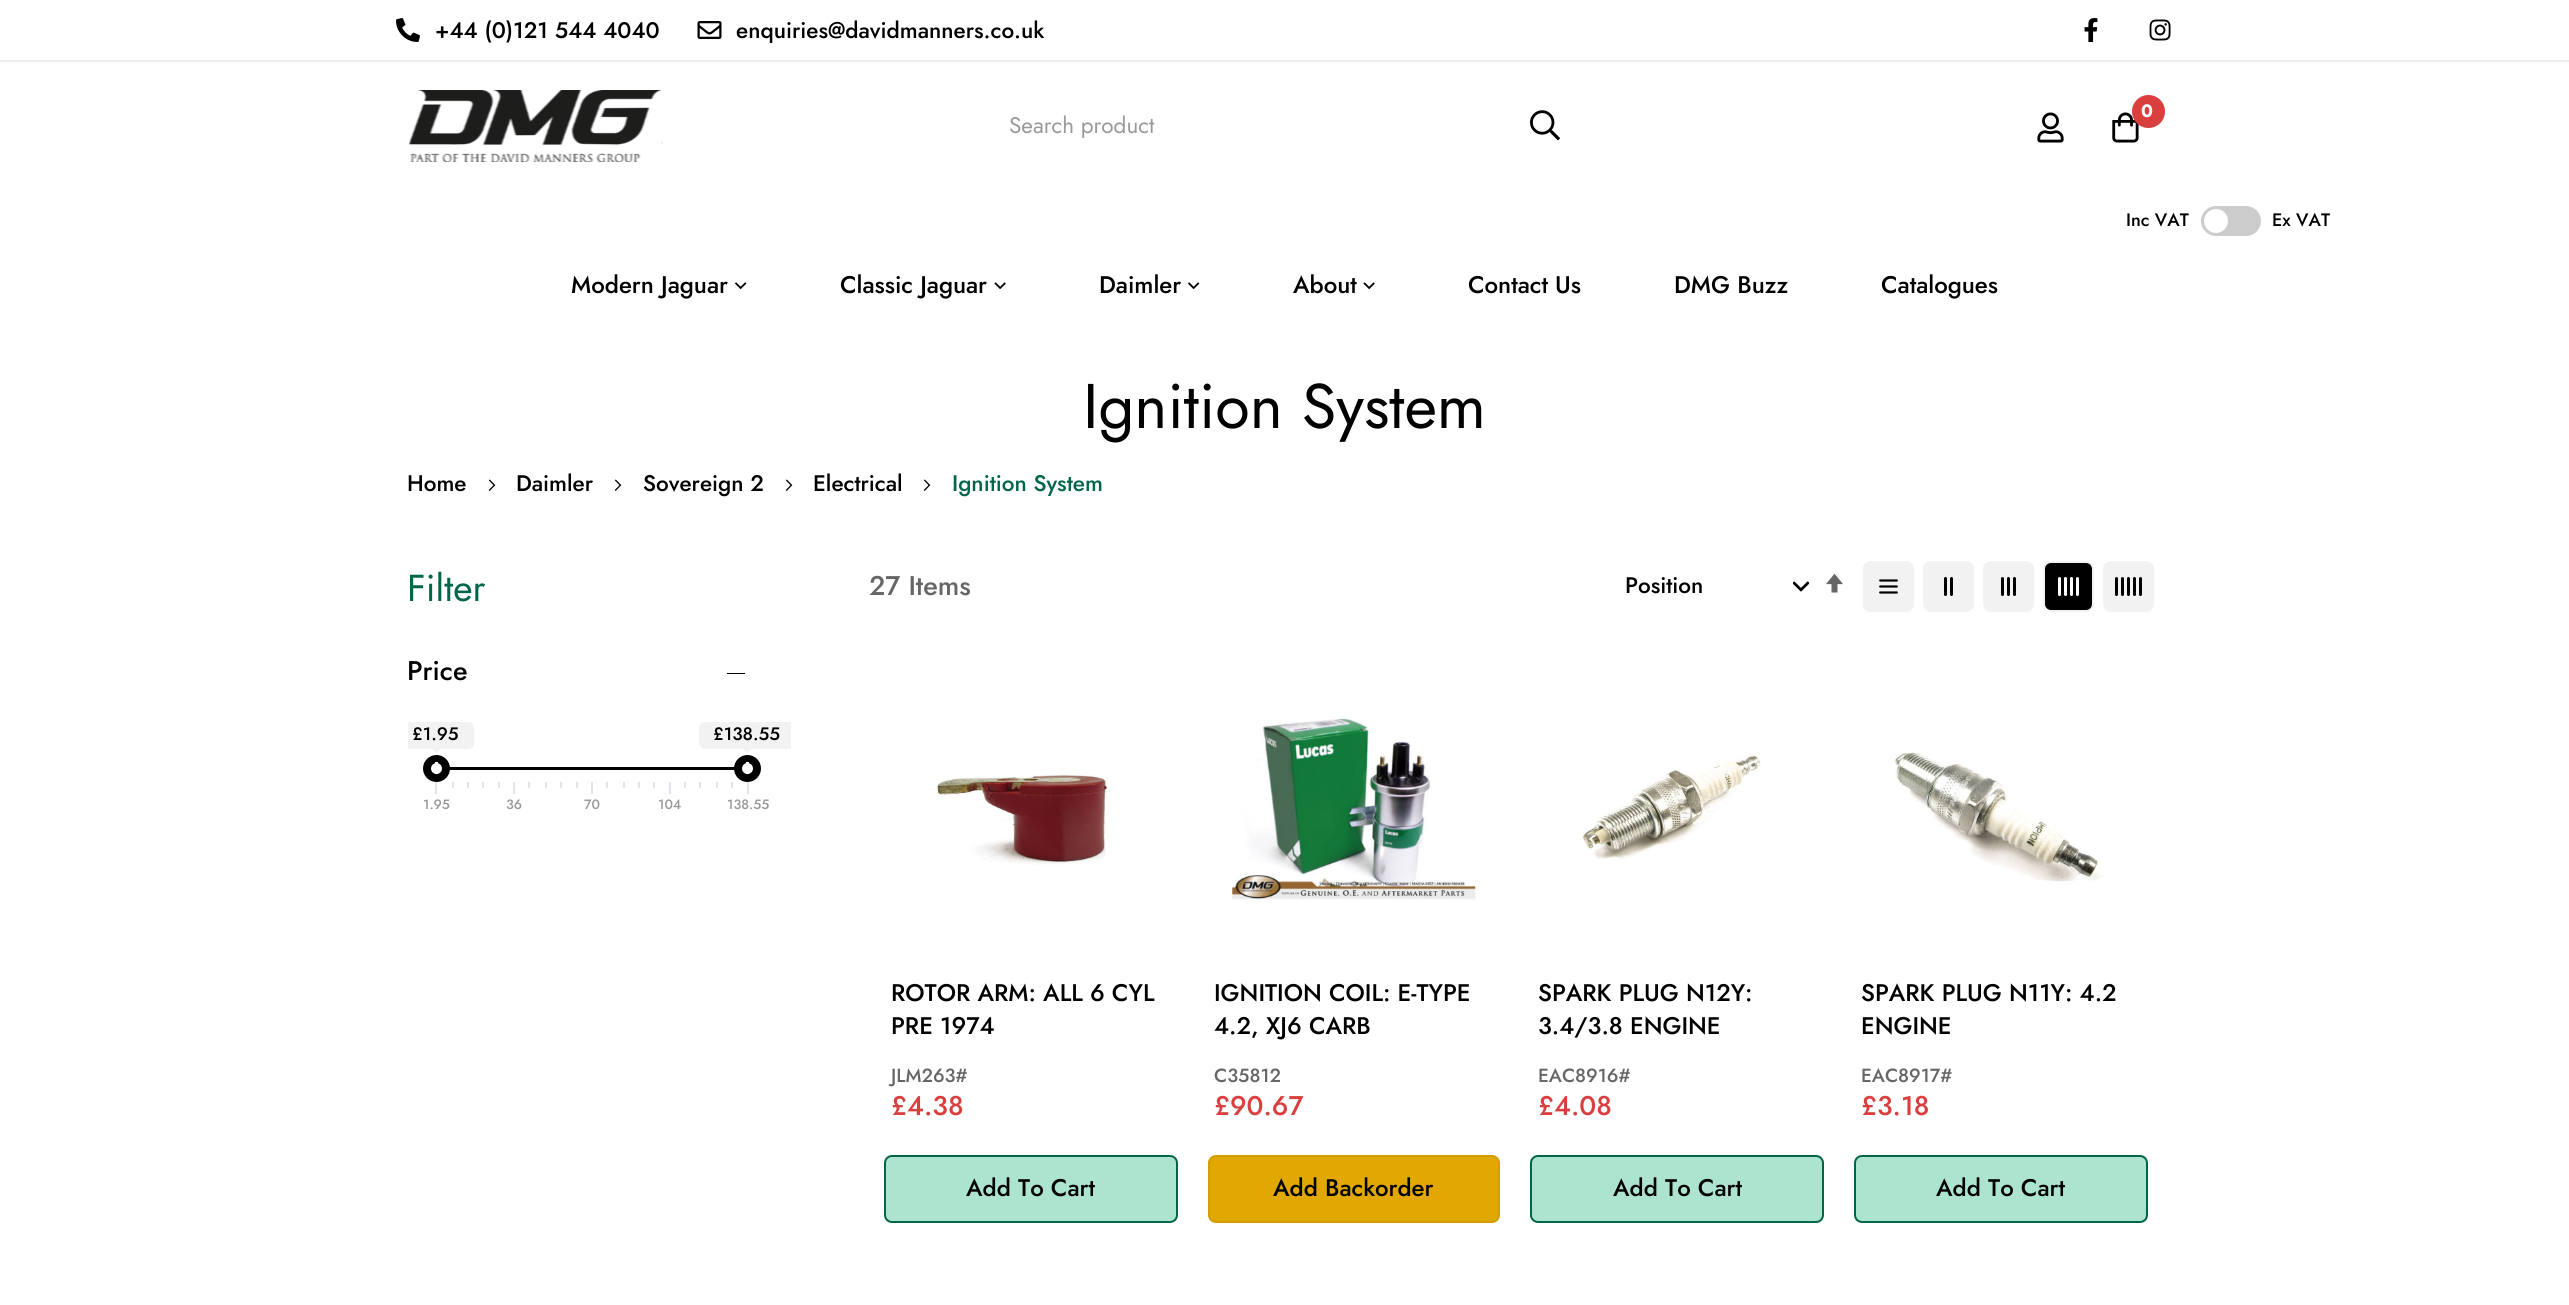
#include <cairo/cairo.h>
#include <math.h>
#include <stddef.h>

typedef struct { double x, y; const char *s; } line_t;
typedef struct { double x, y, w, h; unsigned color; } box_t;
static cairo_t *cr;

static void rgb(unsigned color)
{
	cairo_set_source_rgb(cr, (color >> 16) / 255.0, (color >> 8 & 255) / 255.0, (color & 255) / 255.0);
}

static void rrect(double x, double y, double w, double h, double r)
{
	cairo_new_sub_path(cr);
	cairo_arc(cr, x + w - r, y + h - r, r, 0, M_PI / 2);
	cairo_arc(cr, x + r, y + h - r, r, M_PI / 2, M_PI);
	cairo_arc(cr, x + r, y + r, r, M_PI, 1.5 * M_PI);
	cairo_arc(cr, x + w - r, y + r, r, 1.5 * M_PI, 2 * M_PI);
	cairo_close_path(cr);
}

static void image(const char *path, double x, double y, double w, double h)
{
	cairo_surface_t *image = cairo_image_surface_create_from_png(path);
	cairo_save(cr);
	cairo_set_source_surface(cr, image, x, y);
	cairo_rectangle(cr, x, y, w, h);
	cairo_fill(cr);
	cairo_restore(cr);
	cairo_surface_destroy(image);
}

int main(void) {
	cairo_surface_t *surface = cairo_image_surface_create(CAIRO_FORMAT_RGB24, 2569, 1305);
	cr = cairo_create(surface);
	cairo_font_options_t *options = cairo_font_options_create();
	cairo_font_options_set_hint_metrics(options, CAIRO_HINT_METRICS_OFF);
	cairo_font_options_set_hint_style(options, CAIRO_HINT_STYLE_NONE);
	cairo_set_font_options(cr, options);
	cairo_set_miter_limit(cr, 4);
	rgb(0xffffff);
	cairo_paint(cr);
	rgb(0xeeeeee);
	cairo_rectangle(cr, 0, 60, 2569, 2);
	cairo_fill(cr);
	image("img/1.png", 396, 18, 24, 24);
	image("img/2.png", 697, 21, 25, 18);
	image("img/3.png", 2084, 18, 14, 24);
	image("img/4.png", 2149, 19, 22, 22);
	image("img/5.png", 408, 90, 255, 72);
	image("img/6.png", 2037, 112, 27, 31);
	image("img/7.png", 2112, 112, 27, 31);
	rgb(0xda3f3f);
	cairo_arc(cr, 2148.5, 111.5, 16.5, 0, 2 * M_PI);
	cairo_fill(cr);
	image("img/8.png", 1530, 110, 30, 31);
	rgb(0xcccccc);
	rrect(2201, 206, 60, 30, 15);
	cairo_fill(cr);
	rgb(0xffffff);
	cairo_arc(cr, 2216, 221, 12, 0, 2 * M_PI);
	cairo_fill(cr);
	image("img/9.png", 735, 282, 12, 8);
	image("img/10.png", 994, 282, 12, 8);
	image("img/9.png", 1188, 282, 12, 8);
	image("img/10.png", 1363, 282, 12, 8);
	image("img/11.png", 488, 479, 8, 12);
	image("img/11.png", 614, 479, 8, 12);
	image("img/11.png", 785, 479, 8, 12);
	image("img/11.png", 923, 479, 8, 12);
	rgb(0x000000);
	cairo_rectangle(cr, 727, 673, 18, 1);
	cairo_fill(cr);
	rgb(0xf2f2f2);
	cairo_new_path(cr);
	cairo_move_to(cr, 408, 722);
	cairo_line_to(cr, 468, 722);
	cairo_curve_to(cr, 471.5, 722, 474, 724.5, 474, 728);
	cairo_line_to(cr, 474, 743);
	cairo_curve_to(cr, 474, 746.5, 471.5, 749, 468, 749);
	cairo_line_to(cr, 408, 749);
	cairo_close_path(cr);
	cairo_fill(cr);
	cairo_new_path(cr);
	cairo_move_to(cr, 432, 748.5);
	cairo_line_to(cr, 441, 748.5);
	cairo_line_to(cr, 436.5, 753);
	cairo_close_path(cr);
	cairo_fill(cr);
	cairo_save(cr);
	cairo_rectangle(cr, 408, 722, 383, 90);
	cairo_clip(cr);
	rrect(699, 722, 96, 27, 6);
	cairo_fill(cr);
	cairo_restore(cr);
	cairo_new_path(cr);
	cairo_move_to(cr, 742.5, 748.5);
	cairo_line_to(cr, 751.5, 748.5);
	cairo_line_to(cr, 747, 753);
	cairo_close_path(cr);
	cairo_fill(cr);
	rgb(0x000000);
	cairo_rectangle(cr, 449, 767, 286, 3);
	cairo_fill(cr);
	rgb(0xffffff);
	cairo_arc(cr, 436.5, 768.5, 9.5, 0, 2 * M_PI);
	cairo_fill_preserve(cr);
	rgb(0x000000);
	cairo_set_line_width(cr, 8);
	cairo_stroke(cr);
	rgb(0xffffff);
	cairo_rectangle(cr, 435, 762, 3, 12);
	cairo_fill(cr);
	cairo_arc(cr, 747.5, 768.5, 9.5, 0, 2 * M_PI);
	cairo_fill_preserve(cr);
	rgb(0x000000);
	cairo_stroke(cr);
	{
		static const box_t items[] = {
			{746, 762, 3, 12, 0xffffff},
			{435, 782, 2, 12, 0xe1e4e9},
			{452, 782, 2, 6, 0xe1e4e9},
			{467, 782, 2, 6, 0xe1e4e9},
			{482, 782, 2, 6, 0xe1e4e9},
			{498, 782, 2, 6, 0xe1e4e9},
			{513, 782, 2, 12, 0xe1e4e9},
			{528, 782, 2, 6, 0xe1e4e9},
			{545, 782, 2, 6, 0xe1e4e9},
			{560, 782, 2, 6, 0xe1e4e9},
			{576, 782, 2, 6, 0xe1e4e9},
			{591, 782, 2, 12, 0xe1e4e9},
			{606, 782, 2, 6, 0xe1e4e9},
			{623, 782, 2, 6, 0xe1e4e9},
			{638, 782, 2, 6, 0xe1e4e9},
			{653, 782, 2, 6, 0xe1e4e9},
			{669, 782, 2, 12, 0xe1e4e9},
			{684, 782, 2, 6, 0xe1e4e9},
			{699, 782, 2, 6, 0xe1e4e9},
			{716, 782, 2, 6, 0xe1e4e9},
			{731, 782, 2, 6, 0xe1e4e9},
			{747, 782, 2, 12, 0xe1e4e9},
		};
		for (size_t i = 0; i < sizeof items / sizeof *items; i++) {
			rgb(items[i].color);
			cairo_rectangle(cr, items[i].x, items[i].y, items[i].w, items[i].h);
			cairo_fill(cr);
		}
	}
	image("img/12.png", 1793, 581, 16, 11);
	image("img/13.png", 1826, 573, 17, 20);
	rgb(0xf2f2f2);
	rrect(1863, 561, 51, 51, 8);
	cairo_fill(cr);
	image("img/14.png", 1879, 579, 19, 15);
	rrect(1864, 562, 49, 49, 7);
	cairo_set_line_width(cr, 2);
	cairo_stroke(cr);
	rrect(1924, 562, 49, 49, 7);
	cairo_fill_preserve(cr);
	cairo_stroke(cr);
	rgb(0x000000);
	rrect(1944, 577, 3, 19, 1.5);
	cairo_fill(cr);
	rrect(1950, 577, 3, 19, 1.5);
	cairo_fill(cr);
	rgb(0xf2f2f2);
	rrect(1984, 562, 49, 49, 7);
	cairo_fill_preserve(cr);
	cairo_stroke(cr);
	rgb(0x000000);
	rrect(2001, 577, 3, 19, 1.5);
	cairo_fill(cr);
	rrect(2007, 577, 3, 19, 1.5);
	cairo_fill(cr);
	rrect(2013, 577, 3, 19, 1.5);
	cairo_fill(cr);
	rrect(2044, 562, 49, 49, 7);
	cairo_fill_preserve(cr);
	rgb(0xf2f2f2);
	cairo_stroke(cr);
	rgb(0xffffff);
	rrect(2058, 577, 3, 19, 1.5);
	cairo_fill(cr);
	rrect(2064, 577, 3, 19, 1.5);
	cairo_fill(cr);
	rrect(2070, 577, 3, 19, 1.5);
	cairo_fill(cr);
	rrect(2076, 577, 3, 19, 1.5);
	cairo_fill(cr);
	rgb(0xf2f2f2);
	rrect(2104, 562, 49, 49, 7);
	cairo_fill_preserve(cr);
	cairo_stroke(cr);
	rgb(0x000000);
	rrect(2115, 577, 3, 19, 1.5);
	cairo_fill(cr);
	rrect(2121, 577, 3, 19, 1.5);
	cairo_fill(cr);
	rrect(2127, 577, 3, 19, 1.5);
	cairo_fill(cr);
	rrect(2133, 577, 3, 19, 1.5);
	cairo_fill(cr);
	rrect(2139, 577, 3, 19, 1.5);
	cairo_fill(cr);
	image("img/15.png", 936, 774, 173, 91);
	rgb(0xade4d0);
	rrect(885, 1156, 292, 66, 7);
	cairo_fill_preserve(cr);
	rgb(0x016549);
	cairo_stroke(cr);
	image("img/16.png", 1231, 718, 246, 183);
	rgb(0xe0a800);
	rrect(1209, 1156, 290, 66, 7);
	cairo_fill_preserve(cr);
	rgb(0xd39e00);
	cairo_stroke(cr);
	image("img/17.png", 1582, 755, 179, 105);
	rgb(0xade4d0);
	rrect(1531, 1156, 292, 66, 7);
	cairo_fill_preserve(cr);
	rgb(0x016549);
	cairo_stroke(cr);
	image("img/18.png", 1894, 752, 210, 130);
	rgb(0xade4d0);
	rrect(1855, 1156, 292, 66, 7);
	cairo_fill_preserve(cr);
	rgb(0x016549);
	cairo_stroke(cr);
	cairo_select_font_face(cr, "Jost Medium", CAIRO_FONT_SLANT_NORMAL, CAIRO_FONT_WEIGHT_NORMAL);
	cairo_set_font_size(cr, 22.5);
	rgb(0x000000);
	cairo_move_to(cr, 435, 38);
	cairo_show_text(cr, "+44 (0)121 544 4040");
	cairo_move_to(cr, 736, 38);
	cairo_show_text(cr, "enquiries@davidmanners.co.uk");
	cairo_select_font_face(cr, "Jost", CAIRO_FONT_SLANT_NORMAL, CAIRO_FONT_WEIGHT_BOLD);
	cairo_set_font_size(cr, 18);
	rgb(0xffffff);
	cairo_move_to(cr, 2141, 117);
	cairo_show_text(cr, "0");
	cairo_select_font_face(cr, "Jost", CAIRO_FONT_SLANT_NORMAL, CAIRO_FONT_WEIGHT_NORMAL);
	cairo_set_font_size(cr, 22.5);
	rgb(0x999999);
	cairo_move_to(cr, 1009, 133);
	cairo_show_text(cr, "Search product");
	cairo_select_font_face(cr, "Jost Medium", CAIRO_FONT_SLANT_NORMAL, CAIRO_FONT_WEIGHT_NORMAL);
	cairo_set_font_size(cr, 18);
	rgb(0x000000);
	cairo_move_to(cr, 2126, 226);
	cairo_show_text(cr, "Inc VAT");
	cairo_move_to(cr, 2272, 226);
	cairo_show_text(cr, "Ex VAT");
	cairo_set_font_size(cr, 24);
	{
		static const line_t items[] = {
			{571, 293, "Modern Jaguar"},
			{840, 293, "Classic Jaguar"},
			{1099, 293, "Daimler"},
			{1293, 293, "About"},
			{1468, 293, "Contact Us"},
			{1674, 293, "DMG Buzz"},
			{1881, 293, "Catalogues"},
		};
		for (size_t i = 0; i < sizeof items / sizeof *items; i++) {
			cairo_move_to(cr, items[i].x, items[i].y);
			cairo_show_text(cr, items[i].s);
		}
	}
	cairo_select_font_face(cr, "Jost", CAIRO_FONT_SLANT_NORMAL, CAIRO_FONT_WEIGHT_NORMAL);
	cairo_set_font_size(cr, 63);
	cairo_move_to(cr, 1083, 428);
	cairo_show_text(cr, "Ignition System");
	cairo_select_font_face(cr, "Jost Medium", CAIRO_FONT_SLANT_NORMAL, CAIRO_FONT_WEIGHT_NORMAL);
	cairo_set_font_size(cr, 22.5);
	{
		static const line_t items[] = {
			{407, 491, "Home"},
			{516, 491, "Daimler"},
			{643, 491, "Sovereign 2"},
			{813, 491, "Electrical"},
		};
		for (size_t i = 0; i < sizeof items / sizeof *items; i++) {
			cairo_move_to(cr, items[i].x, items[i].y);
			cairo_show_text(cr, items[i].s);
		}
	}
	rgb(0x016548);
	cairo_move_to(cr, 952, 491);
	cairo_show_text(cr, "Ignition System");
	cairo_select_font_face(cr, "Jost", CAIRO_FONT_SLANT_NORMAL, CAIRO_FONT_WEIGHT_NORMAL);
	cairo_set_font_size(cr, 37.5);
	cairo_move_to(cr, 407, 601);
	cairo_show_text(cr, "Filter");
	cairo_select_font_face(cr, "Jost Medium", CAIRO_FONT_SLANT_NORMAL, CAIRO_FONT_WEIGHT_NORMAL);
	cairo_set_font_size(cr, 27);
	rgb(0x000000);
	cairo_move_to(cr, 407, 680);
	cairo_show_text(cr, "Price");
	cairo_set_font_size(cr, 18);
	cairo_move_to(cr, 412, 740);
	cairo_show_text(cr, "£1.95");
	cairo_move_to(cr, 713, 740);
	cairo_show_text(cr, "£138.55");
	cairo_set_font_size(cr, 13.5);
	rgb(0x999999);
	{
		static const line_t items[] = {
			{423, 809, "1.95"},
			{506, 809, "36"},
			{584, 809, "70"},
			{658, 809, "104"},
			{727, 809, "138.55"},
		};
		for (size_t i = 0; i < sizeof items / sizeof *items; i++) {
			cairo_move_to(cr, items[i].x, items[i].y);
			cairo_show_text(cr, items[i].s);
		}
	}
	cairo_set_font_size(cr, 27);
	rgb(0x666666);
	cairo_move_to(cr, 869, 595);
	cairo_show_text(cr, "27 Items");
	cairo_set_font_size(cr, 22.5);
	rgb(0x000000);
	cairo_move_to(cr, 1625, 593);
	cairo_show_text(cr, "Position");
	cairo_set_font_size(cr, 24);
	cairo_move_to(cr, 891, 1001);
	cairo_show_text(cr, "ROTOR ARM: ALL 6 CYL");
	cairo_move_to(cr, 891, 1034);
	cairo_show_text(cr, "PRE 1974");
	cairo_set_font_size(cr, 19);
	rgb(0x666666);
	cairo_move_to(cr, 891, 1082);
	cairo_show_text(cr, "JLM263#");
	cairo_set_font_size(cr, 27);
	rgb(0xda3f3f);
	cairo_move_to(cr, 891, 1115);
	cairo_show_text(cr, "£4.38");
	cairo_set_font_size(cr, 24);
	rgb(0x000000);
	{
		static const line_t items[] = {
			{966, 1196, "Add To Cart"},
			{1214, 1001, "IGNITION COIL: E-TYPE"},
			{1214, 1034, "4.2, XJ6 CARB"},
		};
		for (size_t i = 0; i < sizeof items / sizeof *items; i++) {
			cairo_move_to(cr, items[i].x, items[i].y);
			cairo_show_text(cr, items[i].s);
		}
	}
	cairo_set_font_size(cr, 19);
	rgb(0x666666);
	cairo_move_to(cr, 1214, 1082);
	cairo_show_text(cr, "C35812");
	cairo_set_font_size(cr, 27);
	rgb(0xda3f3f);
	cairo_move_to(cr, 1214, 1115);
	cairo_show_text(cr, "£90.67");
	cairo_set_font_size(cr, 24);
	rgb(0x000000);
	{
		static const line_t items[] = {
			{1273, 1196, "Add Backorder"},
			{1538, 1001, "SPARK PLUG N12Y:"},
			{1538, 1034, "3.4/3.8 ENGINE"},
		};
		for (size_t i = 0; i < sizeof items / sizeof *items; i++) {
			cairo_move_to(cr, items[i].x, items[i].y);
			cairo_show_text(cr, items[i].s);
		}
	}
	cairo_set_font_size(cr, 19);
	rgb(0x666666);
	cairo_move_to(cr, 1538, 1082);
	cairo_show_text(cr, "EAC8916#");
	cairo_set_font_size(cr, 27);
	rgb(0xda3f3f);
	cairo_move_to(cr, 1538, 1115);
	cairo_show_text(cr, "£4.08");
	cairo_set_font_size(cr, 24);
	rgb(0x000000);
	{
		static const line_t items[] = {
			{1613, 1196, "Add To Cart"},
			{1861, 1001, "SPARK PLUG N11Y: 4.2"},
			{1861, 1034, "ENGINE"},
		};
		for (size_t i = 0; i < sizeof items / sizeof *items; i++) {
			cairo_move_to(cr, items[i].x, items[i].y);
			cairo_show_text(cr, items[i].s);
		}
	}
	cairo_set_font_size(cr, 19);
	rgb(0x666666);
	cairo_move_to(cr, 1861, 1082);
	cairo_show_text(cr, "EAC8917#");
	cairo_set_font_size(cr, 27);
	rgb(0xda3f3f);
	cairo_move_to(cr, 1861, 1115);
	cairo_show_text(cr, "£3.18");
	cairo_set_font_size(cr, 24);
	rgb(0x000000);
	cairo_move_to(cr, 1936, 1196);
	cairo_show_text(cr, "Add To Cart");
	cairo_surface_write_to_png(surface, "page.png");
	cairo_font_options_destroy(options);
	cairo_destroy(cr);
	cairo_surface_destroy(surface);
	return 0;
}
